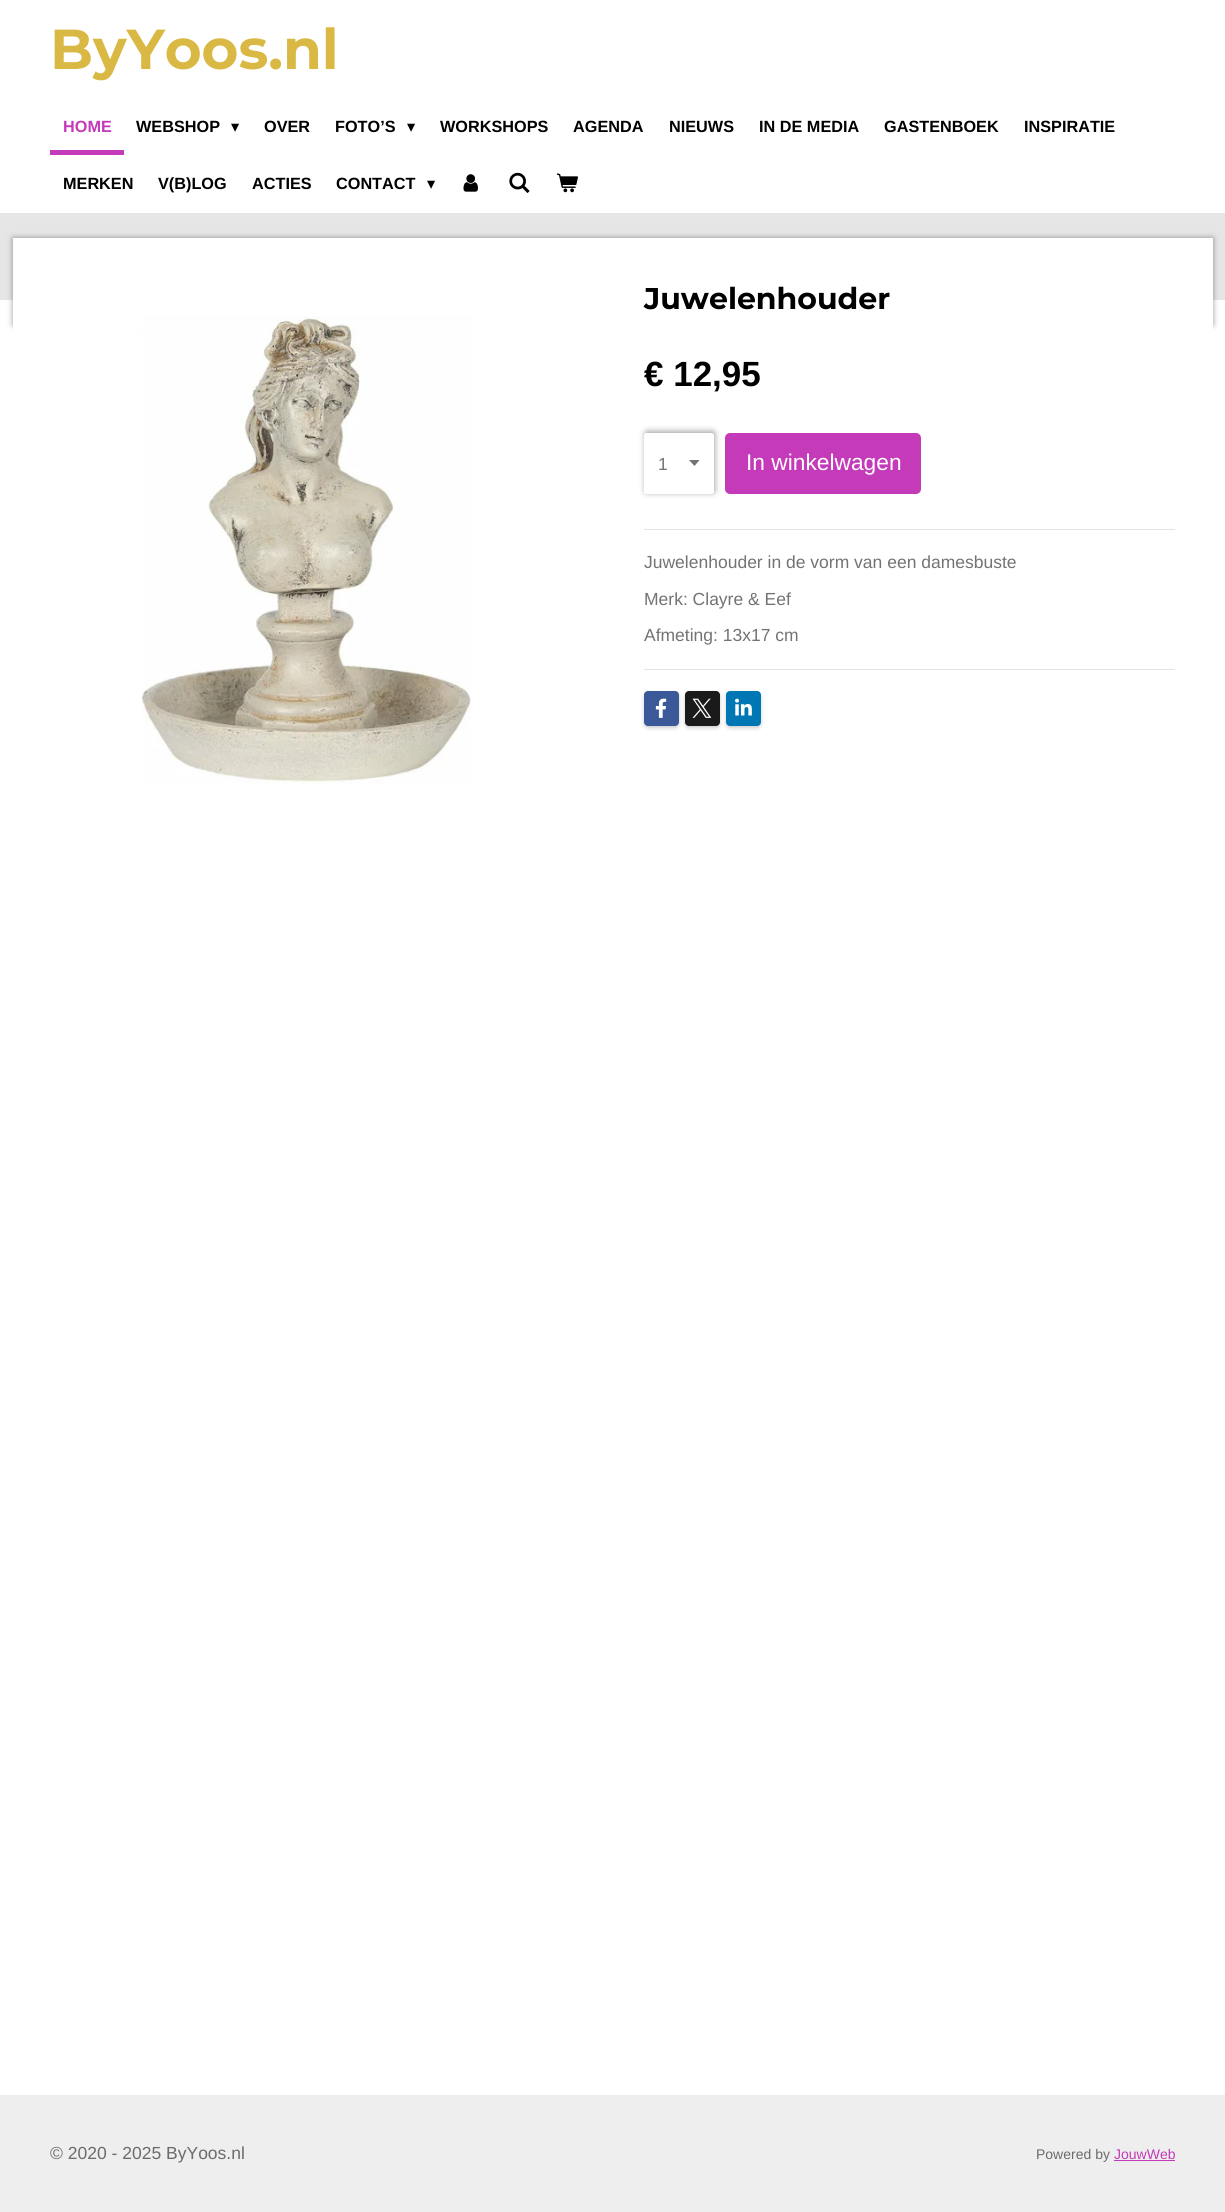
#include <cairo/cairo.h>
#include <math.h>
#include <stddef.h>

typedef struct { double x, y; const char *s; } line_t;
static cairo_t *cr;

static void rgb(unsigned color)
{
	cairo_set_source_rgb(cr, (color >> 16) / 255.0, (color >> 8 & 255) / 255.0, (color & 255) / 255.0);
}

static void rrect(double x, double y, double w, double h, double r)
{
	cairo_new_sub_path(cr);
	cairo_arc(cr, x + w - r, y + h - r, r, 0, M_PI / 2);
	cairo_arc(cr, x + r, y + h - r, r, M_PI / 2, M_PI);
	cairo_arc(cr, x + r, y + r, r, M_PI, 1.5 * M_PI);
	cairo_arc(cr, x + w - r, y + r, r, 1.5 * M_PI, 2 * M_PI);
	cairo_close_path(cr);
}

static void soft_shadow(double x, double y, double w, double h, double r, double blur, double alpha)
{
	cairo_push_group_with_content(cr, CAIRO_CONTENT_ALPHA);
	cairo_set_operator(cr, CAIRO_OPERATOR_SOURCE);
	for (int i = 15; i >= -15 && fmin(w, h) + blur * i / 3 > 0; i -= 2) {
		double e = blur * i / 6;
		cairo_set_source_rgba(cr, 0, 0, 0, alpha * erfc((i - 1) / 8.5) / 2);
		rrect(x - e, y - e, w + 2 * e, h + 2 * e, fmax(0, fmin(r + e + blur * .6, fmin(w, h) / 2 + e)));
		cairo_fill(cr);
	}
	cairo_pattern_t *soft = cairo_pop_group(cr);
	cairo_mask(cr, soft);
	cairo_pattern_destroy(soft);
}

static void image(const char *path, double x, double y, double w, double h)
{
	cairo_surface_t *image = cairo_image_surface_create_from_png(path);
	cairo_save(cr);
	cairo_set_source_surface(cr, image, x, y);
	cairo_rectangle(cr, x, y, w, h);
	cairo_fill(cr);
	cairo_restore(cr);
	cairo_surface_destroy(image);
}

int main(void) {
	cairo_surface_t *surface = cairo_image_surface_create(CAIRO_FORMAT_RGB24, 1225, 2212);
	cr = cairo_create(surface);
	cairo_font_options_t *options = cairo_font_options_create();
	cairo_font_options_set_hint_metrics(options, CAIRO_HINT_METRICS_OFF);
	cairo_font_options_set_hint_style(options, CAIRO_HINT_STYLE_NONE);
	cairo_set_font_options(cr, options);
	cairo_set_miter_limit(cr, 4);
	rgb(0xffffff);
	cairo_paint(cr);
	rgb(0xc43ab9);
	cairo_rectangle(cr, 50, 150, 74, 5);
	cairo_fill(cr);
	image("img/1.png", 463, 174, 15, 18);
	image("img/2.png", 509, 172, 21, 21);
	image("img/3.png", 556, 173, 22, 20);
	rgb(0xe6e6e6);
	cairo_rectangle(cr, 0, 213, 1225, 87);
	cairo_fill(cr);
	rgb(0x000000);
	soft_shadow(13, 238, 1200, 87, 0, 3, 0.4);
	rgb(0xffffff);
	cairo_rectangle(cr, 13, 238, 1200, 93);
	cairo_fill(cr);
	image("img/4.png", 142, 316, 329, 468);
	rgb(0x000000);
	soft_shadow(645, 431, 70, 62, 2.5, 3, 0.35);
	rgb(0xffffff);
	rrect(644, 433, 70, 61, 2.5);
	cairo_fill(cr);
	rgb(0x737373);
	cairo_new_path(cr);
	cairo_move_to(cr, 694.5, 466);
	cairo_line_to(cr, 689, 460);
	cairo_line_to(cr, 699.5, 460);
	cairo_close_path(cr);
	cairo_fill(cr);
	rgb(0xc43ab9);
	rrect(725, 433, 196, 61, 5);
	cairo_fill(cr);
	rgb(0xe3e3e3);
	cairo_rectangle(cr, 644, 529, 531, 1);
	cairo_fill(cr);
	cairo_rectangle(cr, 644, 669, 531, 1);
	cairo_fill(cr);
	rgb(0x000000);
	soft_shadow(644, 693, 35, 35, 4, 2, 0.2);
	rgb(0x3b5998);
	rrect(644, 691, 35, 35, 4);
	cairo_fill(cr);
	image("img/5.png", 655, 698, 12, 20);
	rgb(0x000000);
	soft_shadow(685, 693, 35, 35, 4, 2, 0.2);
	rgb(0x1a1a1a);
	rrect(685, 691, 35, 35, 4);
	cairo_fill(cr);
	image("img/6.png", 692, 698, 20, 20);
	rgb(0x000000);
	soft_shadow(726, 693, 35, 35, 4, 2, 0.2);
	rgb(0x0077b5);
	rrect(726, 691, 35, 35, 4);
	cairo_fill(cr);
	image("img/7.png", 735, 698, 17, 18);
	rgb(0xeeeeee);
	cairo_rectangle(cr, 0, 2095, 1225, 117);
	cairo_fill(cr);
	rgb(0xc43ab9);
	cairo_rectangle(cr, 1114, 2160, 61, 1);
	cairo_fill(cr);
	cairo_select_font_face(cr, "Montserrat", CAIRO_FONT_SLANT_NORMAL, CAIRO_FONT_WEIGHT_BOLD);
	cairo_set_font_size(cr, 56.25);
	rgb(0xdab844);
	cairo_move_to(cr, 50, 69);
	cairo_show_text(cr, "ByYoos.nl");
	cairo_select_font_face(cr, "Liberation Sans", CAIRO_FONT_SLANT_NORMAL, CAIRO_FONT_WEIGHT_BOLD);
	cairo_set_font_size(cr, 16.25);
	rgb(0xc43ab9);
	cairo_move_to(cr, 63, 132);
	cairo_show_text(cr, "HOME");
	rgb(0x000000);
	cairo_move_to(cr, 136, 132);
	cairo_show_text(cr, "WEBSHOP");
	cairo_select_font_face(cr, "DejaVu Sans", CAIRO_FONT_SLANT_NORMAL, CAIRO_FONT_WEIGHT_NORMAL);
	cairo_move_to(cr, 231, 132);
	cairo_show_text(cr, "▾");
	cairo_select_font_face(cr, "Liberation Sans", CAIRO_FONT_SLANT_NORMAL, CAIRO_FONT_WEIGHT_BOLD);
	cairo_move_to(cr, 264, 132);
	cairo_show_text(cr, "OVER");
	cairo_move_to(cr, 335, 132);
	cairo_show_text(cr, "FOTO’S");
	cairo_select_font_face(cr, "DejaVu Sans", CAIRO_FONT_SLANT_NORMAL, CAIRO_FONT_WEIGHT_NORMAL);
	cairo_move_to(cr, 407, 132);
	cairo_show_text(cr, "▾");
	cairo_select_font_face(cr, "Liberation Sans", CAIRO_FONT_SLANT_NORMAL, CAIRO_FONT_WEIGHT_BOLD);
	{
		static const line_t items[] = {
			{440, 132, "WORKSHOPS"},
			{573, 132, "AGENDA"},
			{669, 132, "NIEUWS"},
			{759, 132, "IN DE MEDIA"},
			{884, 132, "GASTENBOEK"},
			{1024, 132, "INSPIRATIE"},
			{63, 189, "MERKEN"},
			{158, 189, "V(B)LOG"},
			{252, 189, "ACTIES"},
			{336, 189, "CONTACT"},
		};
		for (size_t i = 0; i < sizeof items / sizeof *items; i++) {
			cairo_move_to(cr, items[i].x, items[i].y);
			cairo_show_text(cr, items[i].s);
		}
	}
	cairo_select_font_face(cr, "DejaVu Sans", CAIRO_FONT_SLANT_NORMAL, CAIRO_FONT_WEIGHT_NORMAL);
	cairo_move_to(cr, 427, 189);
	cairo_show_text(cr, "▾");
	cairo_select_font_face(cr, "Montserrat", CAIRO_FONT_SLANT_NORMAL, CAIRO_FONT_WEIGHT_BOLD);
	cairo_set_font_size(cr, 30);
	cairo_move_to(cr, 644, 309);
	cairo_show_text(cr, "Juwelenhouder");
	cairo_select_font_face(cr, "Liberation Sans", CAIRO_FONT_SLANT_NORMAL, CAIRO_FONT_WEIGHT_BOLD);
	cairo_set_font_size(cr, 35);
	cairo_move_to(cr, 644, 386);
	cairo_show_text(cr, "€ 12,95");
	cairo_select_font_face(cr, "Liberation Sans", CAIRO_FONT_SLANT_NORMAL, CAIRO_FONT_WEIGHT_NORMAL);
	cairo_set_font_size(cr, 17.5);
	rgb(0x737373);
	cairo_move_to(cr, 658, 470);
	cairo_show_text(cr, "1");
	cairo_set_font_size(cr, 22.75);
	rgb(0xffffff);
	cairo_move_to(cr, 746, 470);
	cairo_show_text(cr, "In winkelwagen");
	cairo_set_font_size(cr, 17.5);
	rgb(0x737373);
	{
		static const line_t items[] = {
			{644, 568, "Juwelenhouder in de vorm van een damesbuste"},
			{644, 605, "Merk: Clayre & Eef"},
			{644, 641, "Afmeting: 13x17 cm"},
		};
		for (size_t i = 0; i < sizeof items / sizeof *items; i++) {
			cairo_move_to(cr, items[i].x, items[i].y);
			cairo_show_text(cr, items[i].s);
		}
	}
	rgb(0x6b6b6b);
	cairo_move_to(cr, 50, 2159);
	cairo_show_text(cr, "© 2020 - 2025 ByYoos.nl");
	cairo_set_font_size(cr, 14);
	cairo_move_to(cr, 1036, 2159);
	cairo_show_text(cr, "Powered by");
	rgb(0xc43ab9);
	cairo_move_to(cr, 1114, 2159);
	cairo_show_text(cr, "JouwWeb");
	cairo_surface_write_to_png(surface, "page.png");
	cairo_font_options_destroy(options);
	cairo_destroy(cr);
	cairo_surface_destroy(surface);
	return 0;
}
